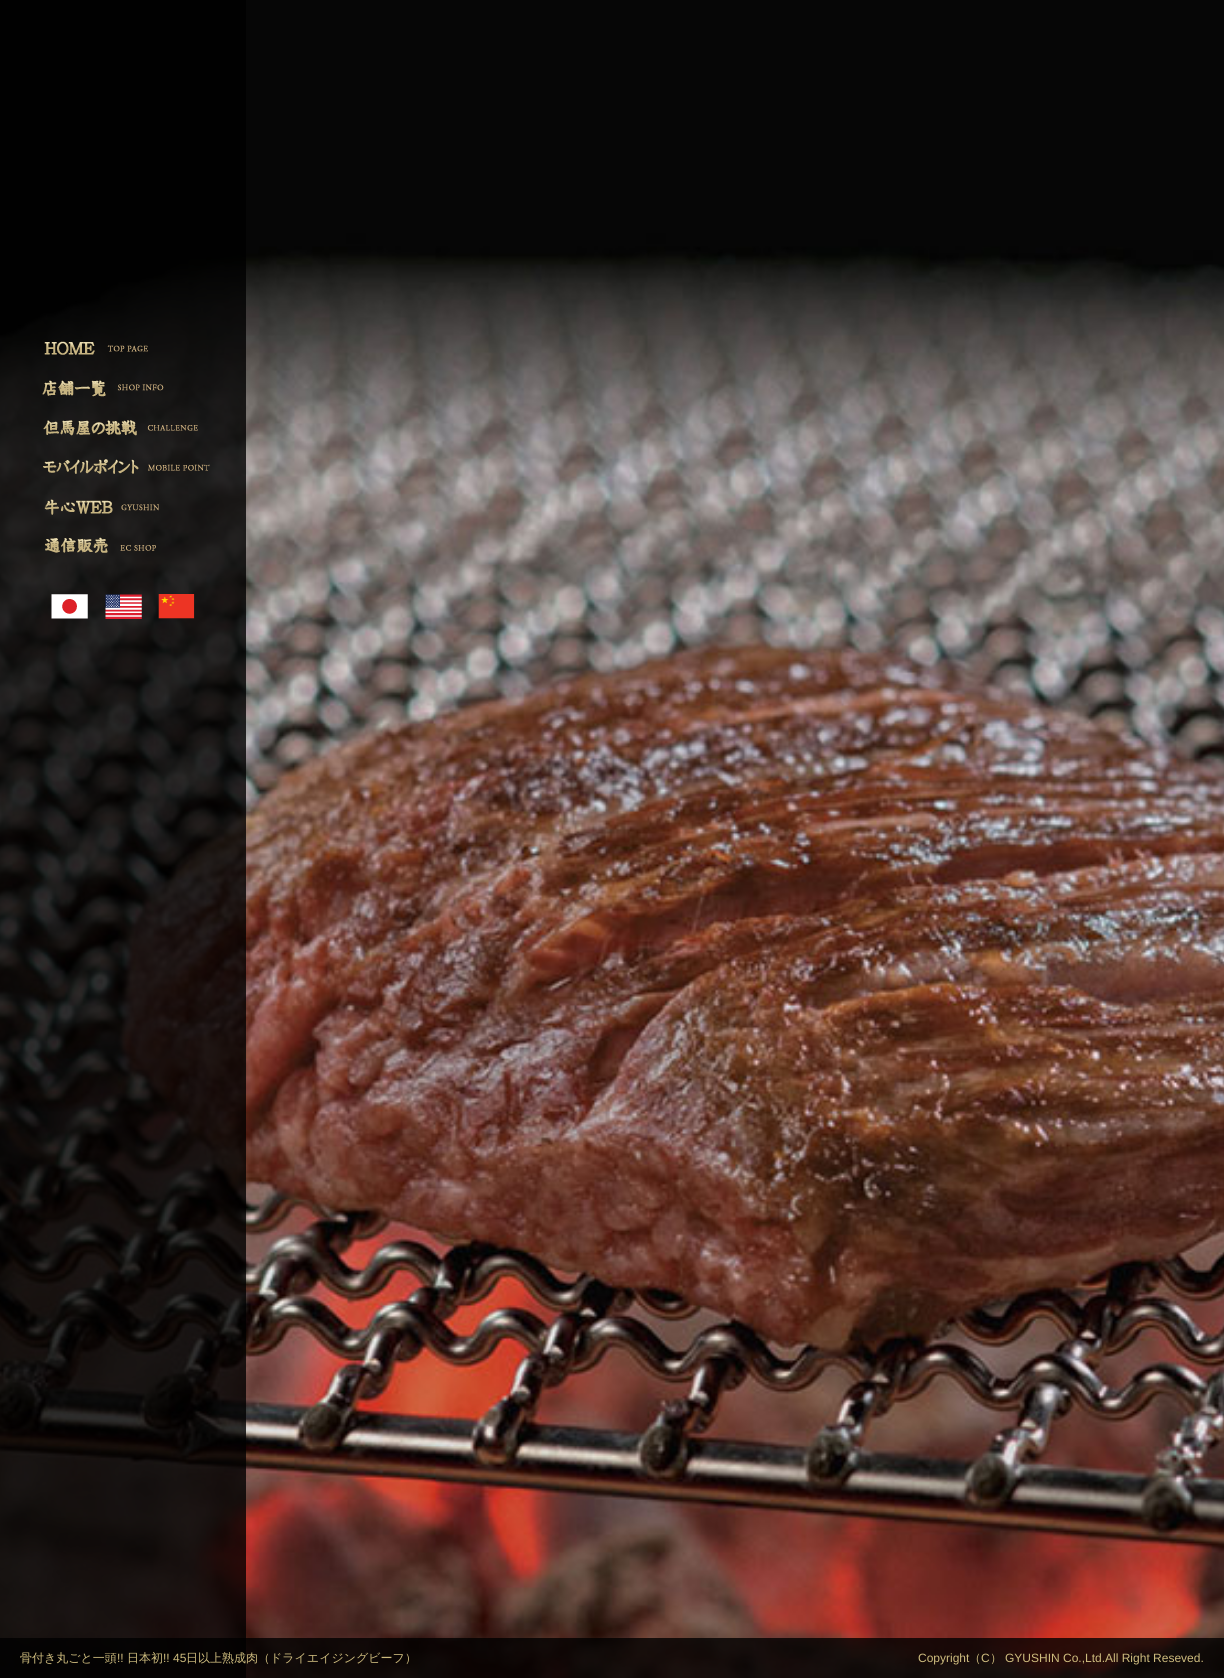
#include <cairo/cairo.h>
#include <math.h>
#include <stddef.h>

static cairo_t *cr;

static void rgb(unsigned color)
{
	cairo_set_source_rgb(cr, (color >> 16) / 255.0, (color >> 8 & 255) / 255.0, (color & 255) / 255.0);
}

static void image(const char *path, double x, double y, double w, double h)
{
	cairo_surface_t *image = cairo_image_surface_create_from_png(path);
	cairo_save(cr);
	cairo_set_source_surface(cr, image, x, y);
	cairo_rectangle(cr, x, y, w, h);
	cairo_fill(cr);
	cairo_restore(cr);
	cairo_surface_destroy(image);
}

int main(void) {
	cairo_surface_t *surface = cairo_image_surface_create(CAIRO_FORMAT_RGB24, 1224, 1678);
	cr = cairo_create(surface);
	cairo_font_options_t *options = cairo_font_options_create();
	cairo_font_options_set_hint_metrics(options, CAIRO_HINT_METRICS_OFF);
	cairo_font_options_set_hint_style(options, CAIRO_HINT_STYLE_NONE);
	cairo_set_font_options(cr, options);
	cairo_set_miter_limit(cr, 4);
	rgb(0xffffff);
	cairo_paint(cr);
	image("img/1.png", 0, 0, 1224, 1678);
	cairo_set_source_rgba(cr, 0, 0, 0, 0.8);
	cairo_rectangle(cr, 0, 0, 246, 1678);
	cairo_fill(cr);
	image("img/2.png", 44, 341, 104, 14);
	image("img/3.png", 42, 380, 122, 17);
	image("img/4.png", 43, 420, 155, 16);
	image("img/5.png", 43, 459, 167, 15);
	image("img/6.png", 44, 499, 115, 16);
	image("img/7.png", 45, 537, 111, 16);
	image("img/8.png", 51, 594, 37, 25);
	image("img/9.png", 105, 594, 37, 25);
	image("img/10.png", 158, 594, 37, 25);
	cairo_rectangle(cr, 0, 1638, 1224, 40);
	cairo_fill(cr);
	cairo_select_font_face(cr, "WenQuanYi Zen Hei Medium", CAIRO_FONT_SLANT_NORMAL, CAIRO_FONT_WEIGHT_NORMAL);
	cairo_set_font_size(cr, 12);
	rgb(0xcebc7e);
	cairo_move_to(cr, 20, 1662);
	cairo_show_text(cr, "骨付き丸ごと一頭");
	cairo_select_font_face(cr, "Liberation Sans", CAIRO_FONT_SLANT_NORMAL, CAIRO_FONT_WEIGHT_NORMAL);
	cairo_move_to(cr, 117, 1662);
	cairo_show_text(cr, "!!");
	cairo_select_font_face(cr, "WenQuanYi Zen Hei Medium", CAIRO_FONT_SLANT_NORMAL, CAIRO_FONT_WEIGHT_NORMAL);
	cairo_move_to(cr, 127, 1662);
	cairo_show_text(cr, "日本初");
	cairo_select_font_face(cr, "Liberation Sans", CAIRO_FONT_SLANT_NORMAL, CAIRO_FONT_WEIGHT_NORMAL);
	cairo_move_to(cr, 163, 1662);
	cairo_show_text(cr, "!! 45");
	cairo_select_font_face(cr, "WenQuanYi Zen Hei Medium", CAIRO_FONT_SLANT_NORMAL, CAIRO_FONT_WEIGHT_NORMAL);
	cairo_move_to(cr, 186, 1662);
	cairo_show_text(cr, "日以上熟成肉（ドライエイジングビーフ）");
	cairo_select_font_face(cr, "Liberation Sans", CAIRO_FONT_SLANT_NORMAL, CAIRO_FONT_WEIGHT_NORMAL);
	cairo_move_to(cr, 918, 1662);
	cairo_show_text(cr, "Copyright");
	cairo_select_font_face(cr, "WenQuanYi Zen Hei Medium", CAIRO_FONT_SLANT_NORMAL, CAIRO_FONT_WEIGHT_NORMAL);
	cairo_move_to(cr, 969, 1662);
	cairo_show_text(cr, "（");
	cairo_select_font_face(cr, "Liberation Sans", CAIRO_FONT_SLANT_NORMAL, CAIRO_FONT_WEIGHT_NORMAL);
	cairo_move_to(cr, 981, 1662);
	cairo_show_text(cr, "C");
	cairo_select_font_face(cr, "WenQuanYi Zen Hei Medium", CAIRO_FONT_SLANT_NORMAL, CAIRO_FONT_WEIGHT_NORMAL);
	cairo_move_to(cr, 990, 1662);
	cairo_show_text(cr, "）");
	cairo_select_font_face(cr, "Liberation Sans", CAIRO_FONT_SLANT_NORMAL, CAIRO_FONT_WEIGHT_NORMAL);
	cairo_move_to(cr, 1005, 1662);
	cairo_show_text(cr, "GYUSHIN Co.,Ltd.All Right Reseved.");
	cairo_surface_write_to_png(surface, "page.png");
	cairo_font_options_destroy(options);
	cairo_destroy(cr);
	cairo_surface_destroy(surface);
	return 0;
}
